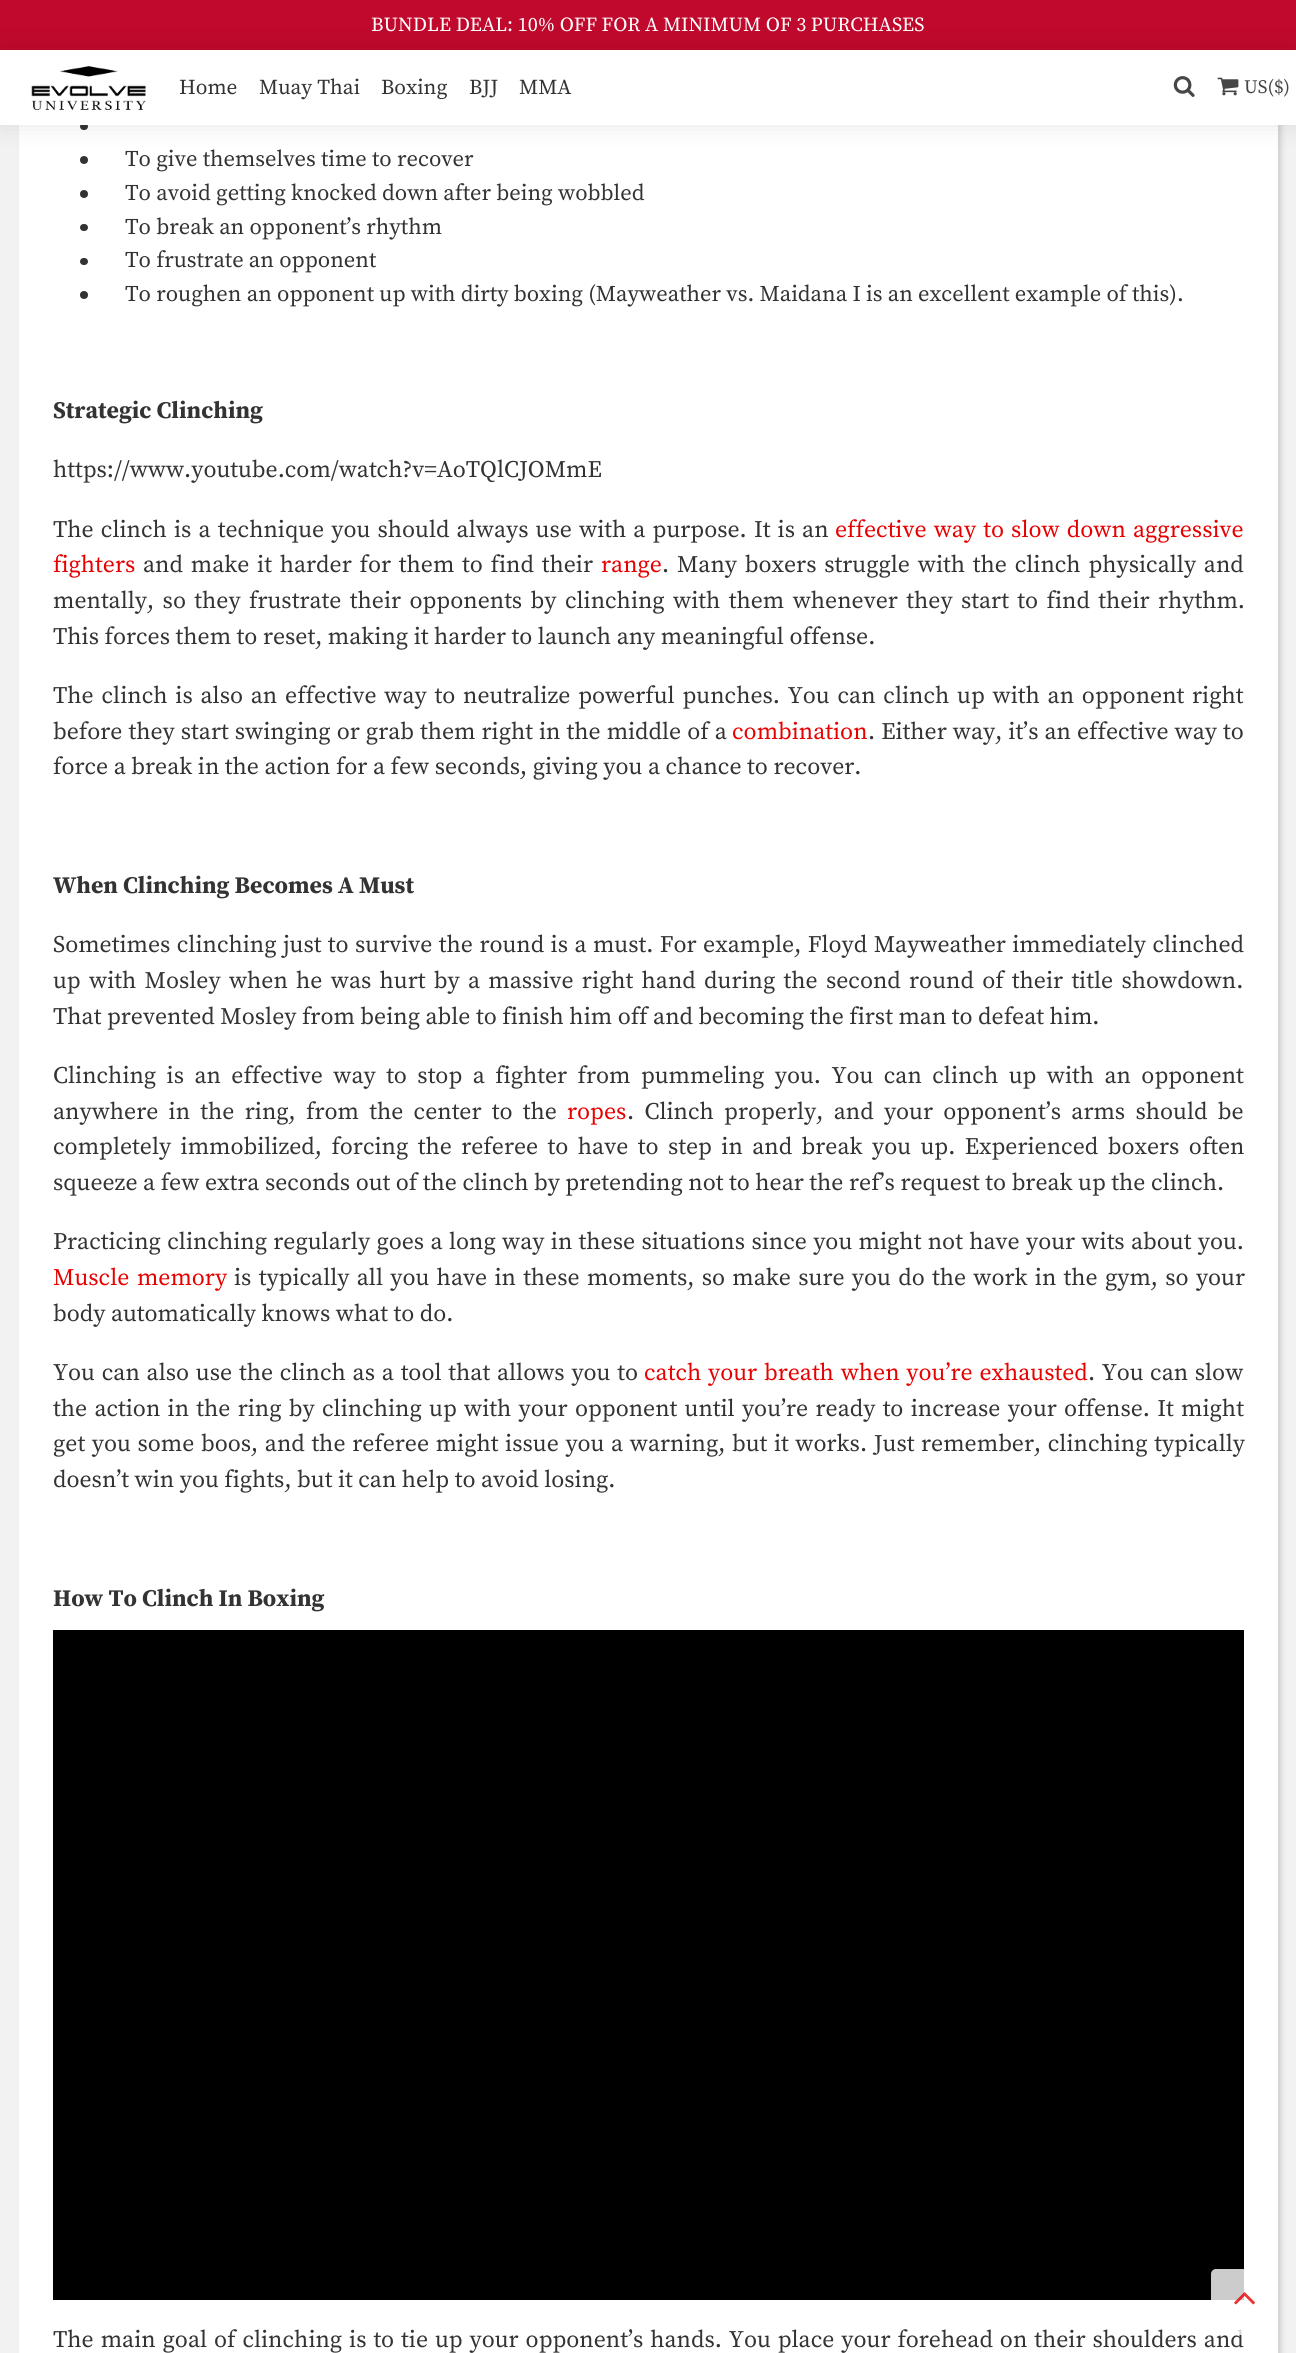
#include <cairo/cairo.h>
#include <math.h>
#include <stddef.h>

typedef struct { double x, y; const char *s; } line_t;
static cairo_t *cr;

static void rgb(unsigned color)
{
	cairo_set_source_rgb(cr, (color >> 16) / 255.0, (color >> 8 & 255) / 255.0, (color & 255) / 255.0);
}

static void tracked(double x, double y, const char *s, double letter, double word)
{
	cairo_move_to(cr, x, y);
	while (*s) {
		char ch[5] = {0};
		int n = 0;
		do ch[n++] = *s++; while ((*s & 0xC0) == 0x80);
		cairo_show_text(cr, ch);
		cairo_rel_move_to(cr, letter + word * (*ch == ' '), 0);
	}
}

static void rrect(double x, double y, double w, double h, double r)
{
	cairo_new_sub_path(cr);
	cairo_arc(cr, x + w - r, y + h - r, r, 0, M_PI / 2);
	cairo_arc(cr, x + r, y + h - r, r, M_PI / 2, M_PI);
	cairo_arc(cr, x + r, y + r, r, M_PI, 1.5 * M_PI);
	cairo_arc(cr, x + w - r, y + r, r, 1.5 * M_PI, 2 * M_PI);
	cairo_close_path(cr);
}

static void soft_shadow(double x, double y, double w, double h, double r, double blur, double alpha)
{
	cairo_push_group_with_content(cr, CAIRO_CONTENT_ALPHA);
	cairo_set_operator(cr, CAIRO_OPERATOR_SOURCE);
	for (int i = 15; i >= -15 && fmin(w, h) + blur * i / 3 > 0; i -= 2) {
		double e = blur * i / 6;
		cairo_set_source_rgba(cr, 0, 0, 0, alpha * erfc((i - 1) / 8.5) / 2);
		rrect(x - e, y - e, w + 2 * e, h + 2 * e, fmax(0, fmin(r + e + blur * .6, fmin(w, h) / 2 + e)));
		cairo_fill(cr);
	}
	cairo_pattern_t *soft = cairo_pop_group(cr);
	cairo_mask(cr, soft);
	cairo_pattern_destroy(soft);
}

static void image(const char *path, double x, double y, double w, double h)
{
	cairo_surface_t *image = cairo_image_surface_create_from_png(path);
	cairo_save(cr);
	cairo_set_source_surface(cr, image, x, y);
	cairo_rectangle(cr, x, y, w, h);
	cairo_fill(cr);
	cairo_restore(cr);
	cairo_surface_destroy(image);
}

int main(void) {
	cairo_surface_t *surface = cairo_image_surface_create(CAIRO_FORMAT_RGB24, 1296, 2353);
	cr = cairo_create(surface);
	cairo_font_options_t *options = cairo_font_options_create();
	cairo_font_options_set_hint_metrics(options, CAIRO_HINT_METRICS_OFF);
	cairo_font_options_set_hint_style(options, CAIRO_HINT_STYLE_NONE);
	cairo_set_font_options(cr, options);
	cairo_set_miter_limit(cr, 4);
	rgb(0xf2f2f2);
	cairo_paint(cr);
	rgb(0xa5a5a5);
	soft_shadow(23, -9, 1258, 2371, 0, 3, 0.5);
	rgb(0xc0092c);
	cairo_rectangle(cr, 0, 0, 1296, 50);
	cairo_fill(cr);
	rgb(0xffffff);
	cairo_rectangle(cr, 19, 125, 1259, 2228);
	cairo_fill(cr);
	rgb(0x333333);
	rrect(80, 123, 8, 7, 3.5);
	cairo_fill(cr);
	cairo_arc(cr, 84, 160, 4, 0, 2 * M_PI);
	cairo_fill(cr);
	rgb(0x000000);
	soft_shadow(0, 50, 1296, 75, 0, 12.5, 0.1);
	rgb(0xffffff);
	cairo_rectangle(cr, 0, 50, 1296, 75);
	cairo_fill(cr);
	image("img/1.png", 31, 66, 115, 44);
	image("img/2.png", 1173, 76, 22, 21);
	image("img/3.png", 1217, 77, 22, 19);
	rgb(0x333333);
	cairo_arc(cr, 84, 194, 4, 0, 2 * M_PI);
	cairo_fill(cr);
	rrect(80, 224, 8, 7, 3.5);
	cairo_fill(cr);
	rrect(80, 258, 8, 7, 3.5);
	cairo_fill(cr);
	cairo_arc(cr, 84, 295, 4, 0, 2 * M_PI);
	cairo_fill(cr);
	rgb(0x000000);
	cairo_rectangle(cr, 53, 1630, 1191, 670);
	cairo_fill(cr);
	cairo_select_font_face(cr, "Source Serif Pro", CAIRO_FONT_SLANT_NORMAL, CAIRO_FONT_WEIGHT_NORMAL);
	cairo_set_font_size(cr, 20);
	rgb(0xffffff);
	cairo_move_to(cr, 371, 31);
	cairo_show_text(cr, "BUNDLE DEAL: 10% OFF FOR A MINIMUM OF 3 PURCHASES");
	cairo_set_font_size(cr, 21.25);
	rgb(0x333333);
	{
		static const line_t items[] = {
			{179, 94, "Home"},
			{259, 94, "Muay Thai"},
			{381, 94, "Boxing"},
			{469, 94, "BJJ"},
			{519, 94, "MMA"},
		};
		for (size_t i = 0; i < sizeof items / sizeof *items; i++) {
			cairo_move_to(cr, items[i].x, items[i].y);
			cairo_show_text(cr, items[i].s);
		}
	}
	cairo_set_font_size(cr, 19);
	rgb(0x464646);
	cairo_move_to(cr, 1244, 93);
	cairo_show_text(cr, "US($)");
	cairo_set_font_size(cr, 22.5);
	rgb(0x333333);
	{
		static const line_t items[] = {
			{125, 166, "To give themselves time to recover"},
			{125, 200, "To avoid getting knocked down after being wobbled"},
			{125, 234, "To break an opponent’s rhythm"},
			{125, 267, "To frustrate an opponent"},
			{125, 301, "To roughen an opponent up with dirty boxing (Mayweather vs. Maidana I is an excellent example of this)."},
		};
		for (size_t i = 0; i < sizeof items / sizeof *items; i++) {
			cairo_move_to(cr, items[i].x, items[i].y);
			cairo_show_text(cr, items[i].s);
		}
	}
	cairo_select_font_face(cr, "Source Serif Pro", CAIRO_FONT_SLANT_NORMAL, CAIRO_FONT_WEIGHT_BOLD);
	cairo_set_font_size(cr, 23.75);
	cairo_move_to(cr, 53, 418);
	cairo_show_text(cr, "Strategic Clinching");
	cairo_select_font_face(cr, "Source Serif Pro", CAIRO_FONT_SLANT_NORMAL, CAIRO_FONT_WEIGHT_NORMAL);
	cairo_move_to(cr, 53, 477);
	cairo_show_text(cr, "https://www.youtube.com/watch?v=AoTQlCJOMmE");
	tracked(53, 537, "The clinch is a technique you should always use with a purpose. It is an", 0, 1.6);
	rgb(0xe70000);
	tracked(835, 537, "effective way to slow down aggressive", 0, 1.6);
	cairo_move_to(cr, 53, 572);
	cairo_show_text(cr, "fighters");
	rgb(0x333333);
	tracked(143, 572, "and make it harder for them to find their", 0, 2.25);
	rgb(0xe70000);
	cairo_move_to(cr, 601, 572);
	cairo_show_text(cr, "range");
	rgb(0x333333);
	tracked(662, 572, ". Many boxers struggle with the clinch physically and", 0, 2.25);
	tracked(53, 608, "mentally, so they frustrate their opponents by clinching with them whenever they start to find their rhythm.", 0, 2.9);
	cairo_move_to(cr, 53, 644);
	cairo_show_text(cr, "This forces them to reset, making it harder to launch any meaningful offense.");
	tracked(53, 703, "The clinch is also an effective way to neutralize powerful punches. You can clinch up with an opponent right", 0, 2.25);
	tracked(53, 739, "before they start swinging or grab them right in the middle of a", 0, 0.5);
	rgb(0xe70000);
	cairo_move_to(cr, 732, 739);
	cairo_show_text(cr, "combination");
	rgb(0x333333);
	tracked(868, 739, ". Either way, it’s an effective way to", 0, 0.5);
	cairo_move_to(cr, 53, 774);
	cairo_show_text(cr, "force a break in the action for a few seconds, giving you a chance to recover.");
	cairo_select_font_face(cr, "Source Serif Pro", CAIRO_FONT_SLANT_NORMAL, CAIRO_FONT_WEIGHT_BOLD);
	cairo_move_to(cr, 53, 893);
	cairo_show_text(cr, "When Clinching Becomes A Must");
	cairo_select_font_face(cr, "Source Serif Pro", CAIRO_FONT_SLANT_NORMAL, CAIRO_FONT_WEIGHT_NORMAL);
	tracked(53, 952, "Sometimes clinching just to survive the round is a must. For example, Floyd Mayweather immediately clinched", 0, 0.9);
	tracked(53, 988, "up with Mosley when he was hurt by a massive right hand during the second round of their title showdown.", 0, 2.75);
	cairo_move_to(cr, 53, 1024);
	cairo_show_text(cr, "That prevented Mosley from being able to finish him off and becoming the first man to defeat him.");
	tracked(53, 1083, "Clinching is an effective way to stop a fighter from pummeling you. You can clinch up with an opponent", 0, 4.9);
	tracked(53, 1119, "anywhere in the ring, from the center to the", 0, 4.75);
	rgb(0xe70000);
	cairo_move_to(cr, 567, 1119);
	cairo_show_text(cr, "ropes");
	rgb(0x333333);
	tracked(627, 1119, ". Clinch properly, and your opponent’s arms should be", 0, 4.75);
	tracked(53, 1154, "completely immobilized, forcing the referee to have to step in and break you up. Experienced boxers often", 0, 3.9);
	cairo_move_to(cr, 53, 1190);
	cairo_show_text(cr, "squeeze a few extra seconds out of the clinch by pretending not to hear the ref’s request to break up the clinch.");
	tracked(53, 1249, "Practicing clinching regularly goes a long way in these situations since you might not have your wits about you.", 0, 0.8);
	rgb(0xe70000);
	tracked(53, 1285, "Muscle memory", 0, 2);
	rgb(0x333333);
	tracked(234, 1285, "is typically all you have in these moments, so make sure you do the work in the gym, so your", 0, 1.75);
	cairo_move_to(cr, 53, 1321);
	cairo_show_text(cr, "body automatically knows what to do.");
	tracked(53, 1380, "You can also use the clinch as a tool that allows you to", 0, 1.25);
	rgb(0xe70000);
	tracked(644, 1380, "catch your breath when you’re exhausted", 0, 1.25);
	rgb(0x333333);
	tracked(1088, 1380, ". You can slow", 0, 1);
	tracked(53, 1416, "the action in the ring by clinching up with your opponent until you’re ready to increase your offense. It might", 0, 1.75);
	tracked(53, 1451, "get you some boos, and the referee might issue you a warning, but it works. Just remember, clinching typically", 0, 1.1);
	cairo_move_to(cr, 53, 1487);
	cairo_show_text(cr, "doesn’t win you fights, but it can help to avoid losing.");
	cairo_select_font_face(cr, "Source Serif Pro", CAIRO_FONT_SLANT_NORMAL, CAIRO_FONT_WEIGHT_BOLD);
	cairo_move_to(cr, 53, 1606);
	cairo_show_text(cr, "How To Clinch In Boxing");
	cairo_select_font_face(cr, "Source Serif Pro", CAIRO_FONT_SLANT_NORMAL, CAIRO_FONT_WEIGHT_NORMAL);
	tracked(53, 2347, "The main goal of clinching is to tie up your opponent’s hands. You place your forehead on their shoulders and", 0, 1.4);
	cairo_set_source_rgba(cr, 1, 1, 1, 0.8);
	rrect(1211, 2269, 67, 66, 5);
	cairo_fill(cr);
	image("img/4.png", 1234, 2292, 21, 13);
	cairo_surface_write_to_png(surface, "page.png");
	cairo_font_options_destroy(options);
	cairo_destroy(cr);
	cairo_surface_destroy(surface);
	return 0;
}
